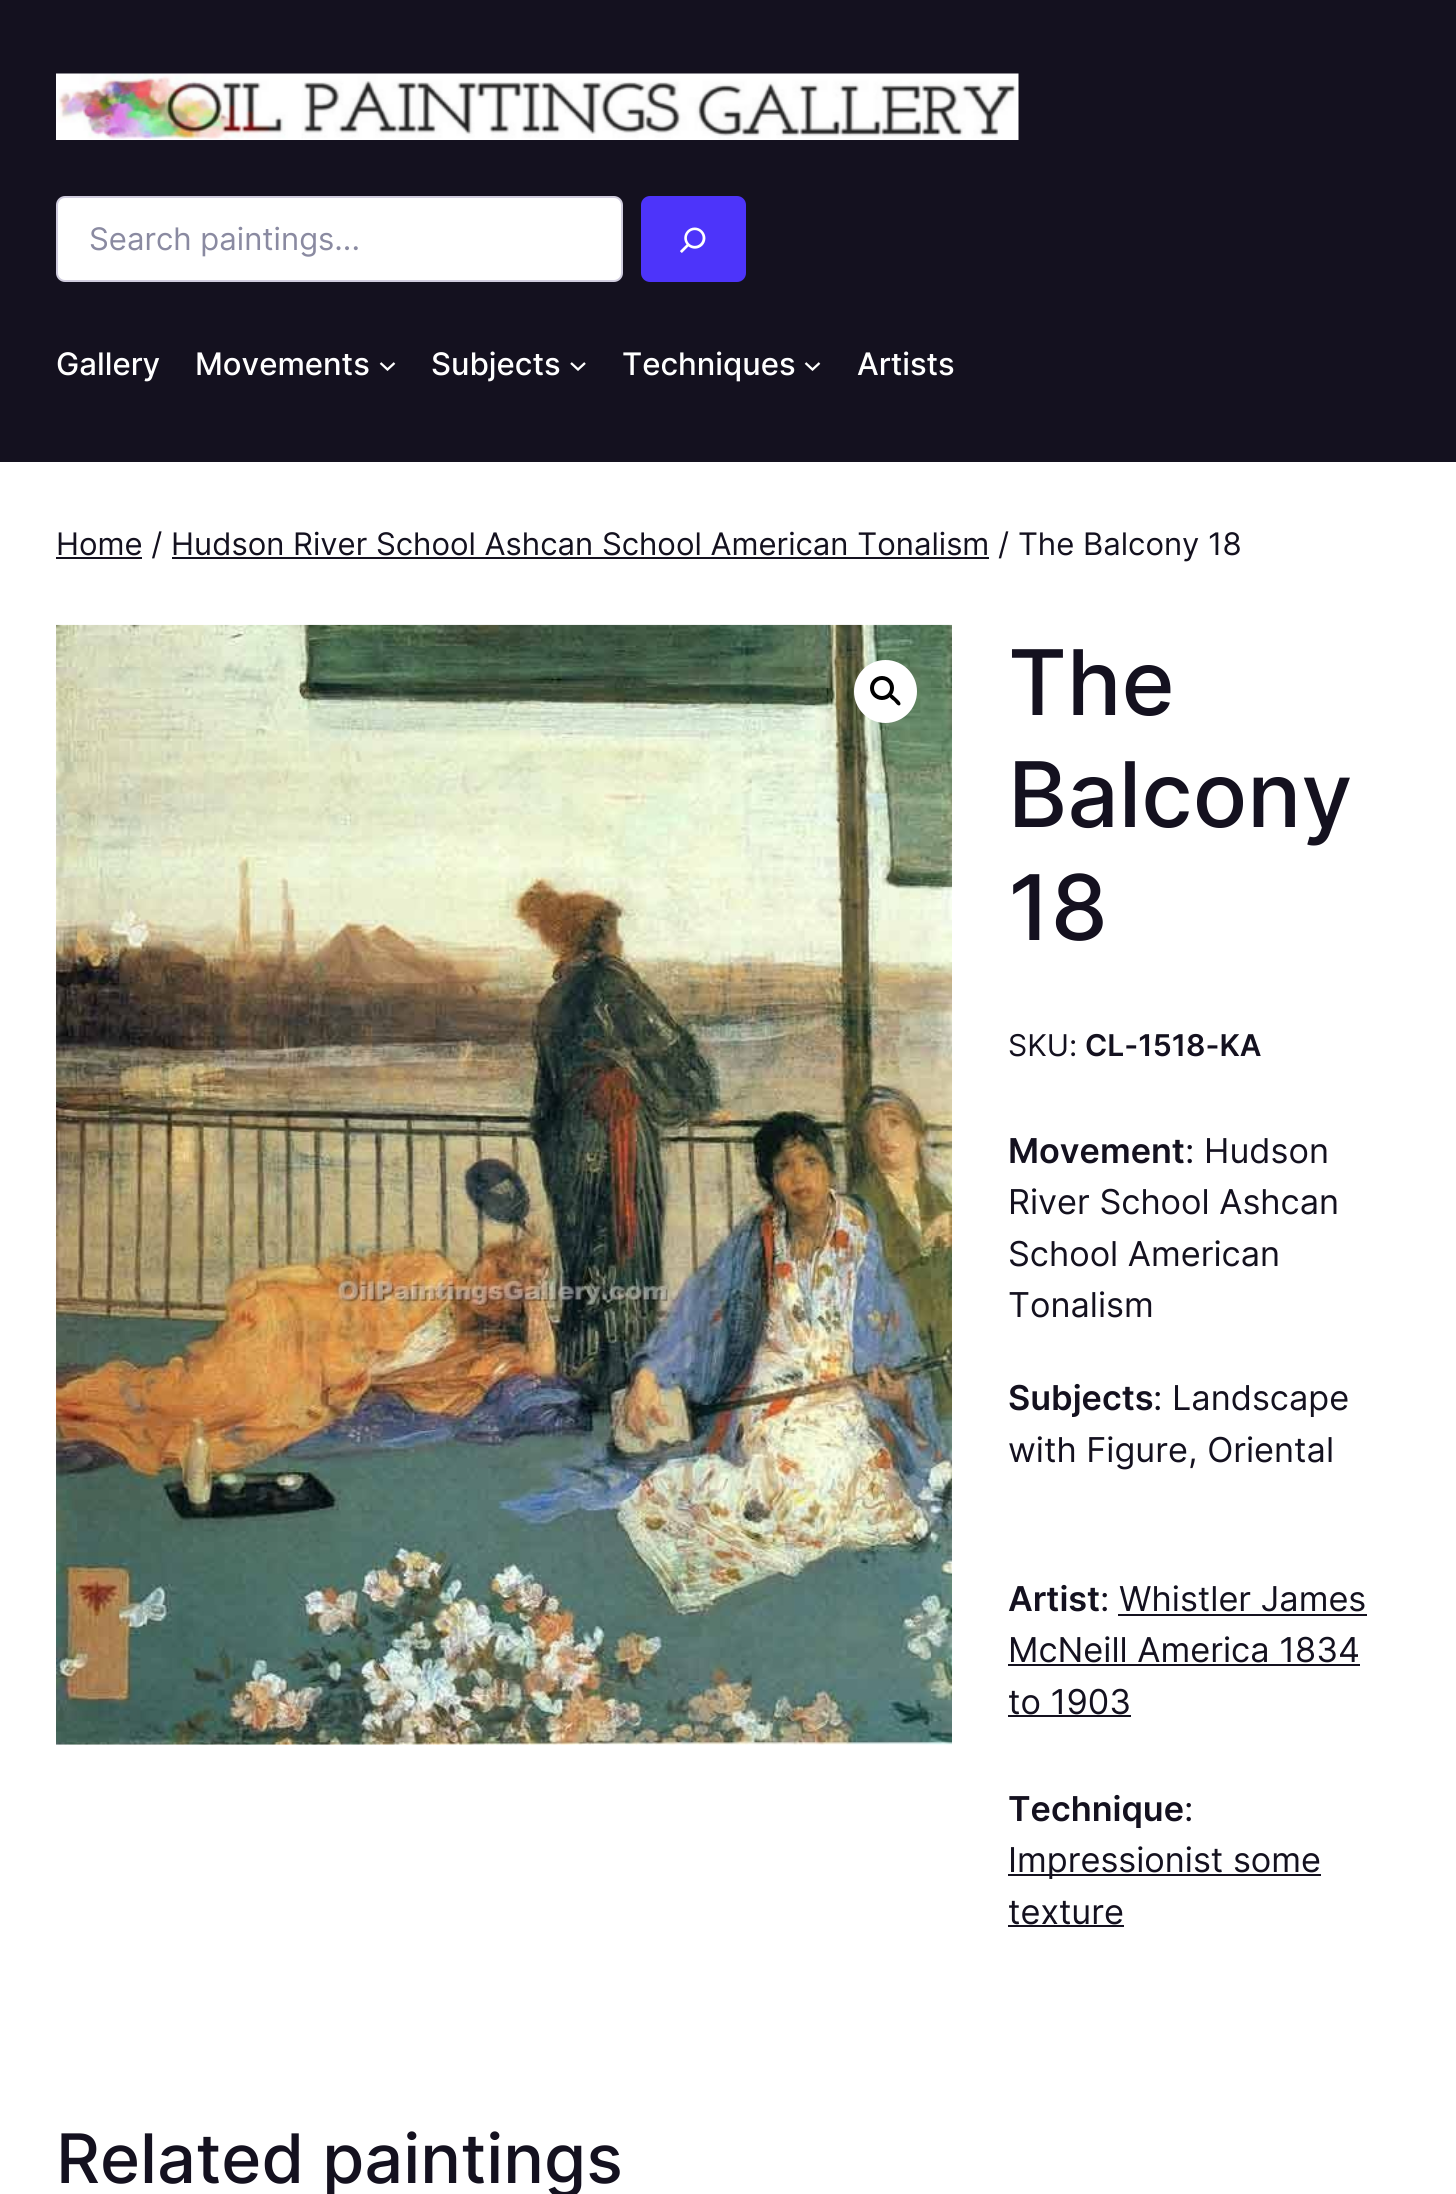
#include <cairo/cairo.h>
#include <math.h>
#include <stddef.h>

typedef struct { double x, y; const char *s; } line_t;
typedef struct { double x, y, w, h; unsigned color; } box_t;
static cairo_t *cr;

static void rgb(unsigned color)
{
	cairo_set_source_rgb(cr, (color >> 16) / 255.0, (color >> 8 & 255) / 255.0, (color & 255) / 255.0);
}

static void rrect(double x, double y, double w, double h, double r)
{
	cairo_new_sub_path(cr);
	cairo_arc(cr, x + w - r, y + h - r, r, 0, M_PI / 2);
	cairo_arc(cr, x + r, y + h - r, r, M_PI / 2, M_PI);
	cairo_arc(cr, x + r, y + r, r, M_PI, 1.5 * M_PI);
	cairo_arc(cr, x + w - r, y + r, r, 1.5 * M_PI, 2 * M_PI);
	cairo_close_path(cr);
}

static void image(const char *path, double x, double y, double w, double h)
{
	cairo_surface_t *image = cairo_image_surface_create_from_png(path);
	cairo_save(cr);
	cairo_set_source_surface(cr, image, x, y);
	cairo_rectangle(cr, x, y, w, h);
	cairo_fill(cr);
	cairo_restore(cr);
	cairo_surface_destroy(image);
}

int main(void) {
	cairo_surface_t *surface = cairo_image_surface_create(CAIRO_FORMAT_RGB24, 1456, 2194);
	cr = cairo_create(surface);
	cairo_font_options_t *options = cairo_font_options_create();
	cairo_font_options_set_hint_metrics(options, CAIRO_HINT_METRICS_OFF);
	cairo_font_options_set_hint_style(options, CAIRO_HINT_STYLE_NONE);
	cairo_set_font_options(cr, options);
	cairo_set_miter_limit(cr, 4);
	rgb(0xffffff);
	cairo_paint(cr);
	rgb(0x14111f);
	cairo_rectangle(cr, 0, 0, 1456, 462);
	cairo_fill(cr);
	image("img/1.png", 56, 73, 963, 67);
	rgb(0xffffff);
	rrect(57, 197, 565, 84, 8);
	cairo_fill_preserve(cr);
	rgb(0xd0ccde);
	cairo_stroke(cr);
	rgb(0x4d34fa);
	rrect(641, 196, 105, 86, 9);
	cairo_fill(cr);
	image("img/2.png", 680, 227, 26, 26);
	cairo_new_path(cr);
	cairo_move_to(cr, 380.5, 363);
	cairo_line_to(cr, 387.5, 369.5);
	cairo_line_to(cr, 394.5, 363);
	rgb(0xffffff);
	cairo_set_line_width(cr, 2.3);
	cairo_stroke(cr);
	cairo_new_path(cr);
	cairo_move_to(cr, 571, 363);
	cairo_line_to(cr, 578, 369.5);
	cairo_line_to(cr, 585, 363);
	cairo_stroke(cr);
	cairo_new_path(cr);
	cairo_move_to(cr, 805.5, 363);
	cairo_line_to(cr, 812.5, 369.5);
	cairo_line_to(cr, 819.5, 363);
	cairo_stroke(cr);
	rgb(0x14111f);
	cairo_rectangle(cr, 56, 557, 86, 2);
	cairo_fill(cr);
	cairo_rectangle(cr, 172, 557, 817, 2);
	cairo_fill(cr);
	image("img/3.png", 56, 624, 896, 1121);
	rgb(0xffffff);
	cairo_arc(cr, 885.5, 691.5, 31.5, 0, 2 * M_PI);
	cairo_fill(cr);
	cairo_arc(cr, 882, 688, 10, 0, 2 * M_PI);
	rgb(0x000000);
	cairo_set_line_width(cr, 4);
	cairo_stroke(cr);
	cairo_new_path(cr);
	cairo_move_to(cr, 890, 695);
	cairo_curve_to(cr, 892, 693, 895, 697.5, 896.5, 698.5);
	cairo_curve_to(cr, 897.5, 699.5, 902, 703, 900, 705);
	cairo_curve_to(cr, 898, 707, 895, 702, 894, 701);
	cairo_curve_to(cr, 892.5, 700, 888, 697, 890, 695);
	cairo_close_path(cr);
	cairo_fill(cr);
	{
		static const box_t items[] = {
			{1118, 1614, 249, 2, 0x14111f},
			{1008, 1664, 352, 2, 0x14111f},
			{1008, 1715, 123, 2, 0x14111f},
			{1008, 1874, 313, 2, 0x14111f},
			{1008, 1925, 116, 2, 0x14111f},
		};
		for (size_t i = 0; i < sizeof items / sizeof *items; i++) {
			rgb(items[i].color);
			cairo_rectangle(cr, items[i].x, items[i].y, items[i].w, items[i].h);
			cairo_fill(cr);
		}
	}
	cairo_select_font_face(cr, "Inter", CAIRO_FONT_SLANT_NORMAL, CAIRO_FONT_WEIGHT_NORMAL);
	cairo_set_font_size(cr, 31.05);
	rgb(0x8a8aa1);
	cairo_move_to(cr, 89, 250);
	cairo_show_text(cr, "Search paintings...");
	cairo_select_font_face(cr, "Inter Medium", CAIRO_FONT_SLANT_NORMAL, CAIRO_FONT_WEIGHT_NORMAL);
	rgb(0xffffff);
	{
		static const line_t items[] = {
			{56, 375, "Gallery"},
			{195, 375, "Movements"},
			{431, 375, "Subjects"},
			{622, 375, "Techniques"},
			{857, 375, "Artists"},
		};
		for (size_t i = 0; i < sizeof items / sizeof *items; i++) {
			cairo_move_to(cr, items[i].x, items[i].y);
			cairo_show_text(cr, items[i].s);
		}
	}
	cairo_select_font_face(cr, "Inter", CAIRO_FONT_SLANT_NORMAL, CAIRO_FONT_WEIGHT_NORMAL);
	rgb(0x14111f);
	cairo_move_to(cr, 56, 555);
	cairo_show_text(cr, "Home / Hudson River School Ashcan School American Tonalism / The Balcony 18");
	cairo_select_font_face(cr, "Inter Medium", CAIRO_FONT_SLANT_NORMAL, CAIRO_FONT_WEIGHT_NORMAL);
	cairo_set_font_size(cr, 90.5);
	{
		static const line_t items[] = {
			{1008, 715, "The"},
			{1008, 827, "Balcony"},
			{1008, 940, "18"},
		};
		for (size_t i = 0; i < sizeof items / sizeof *items; i++) {
			cairo_move_to(cr, items[i].x, items[i].y);
			cairo_show_text(cr, items[i].s);
		}
	}
	cairo_select_font_face(cr, "Inter", CAIRO_FONT_SLANT_NORMAL, CAIRO_FONT_WEIGHT_NORMAL);
	cairo_set_font_size(cr, 30);
	cairo_move_to(cr, 1008, 1056);
	cairo_show_text(cr, "SKU:");
	cairo_select_font_face(cr, "Inter SemiBold", CAIRO_FONT_SLANT_NORMAL, CAIRO_FONT_WEIGHT_NORMAL);
	cairo_move_to(cr, 1085, 1056);
	cairo_show_text(cr, "CL-1518-KA");
	cairo_set_font_size(cr, 34.25);
	cairo_move_to(cr, 1008, 1163);
	cairo_show_text(cr, "Movement");
	cairo_select_font_face(cr, "Inter", CAIRO_FONT_SLANT_NORMAL, CAIRO_FONT_WEIGHT_NORMAL);
	{
		static const line_t items[] = {
			{1185, 1163, ": Hudson"},
			{1008, 1214, "River School Ashcan"},
			{1008, 1266, "School American"},
			{1008, 1317, "Tonalism"},
		};
		for (size_t i = 0; i < sizeof items / sizeof *items; i++) {
			cairo_move_to(cr, items[i].x, items[i].y);
			cairo_show_text(cr, items[i].s);
		}
	}
	cairo_select_font_face(cr, "Inter SemiBold", CAIRO_FONT_SLANT_NORMAL, CAIRO_FONT_WEIGHT_NORMAL);
	cairo_move_to(cr, 1008, 1410);
	cairo_show_text(cr, "Subjects");
	cairo_select_font_face(cr, "Inter", CAIRO_FONT_SLANT_NORMAL, CAIRO_FONT_WEIGHT_NORMAL);
	cairo_move_to(cr, 1153, 1410);
	cairo_show_text(cr, ": Landscape");
	cairo_move_to(cr, 1008, 1462);
	cairo_show_text(cr, "with Figure, Oriental");
	cairo_select_font_face(cr, "Inter SemiBold", CAIRO_FONT_SLANT_NORMAL, CAIRO_FONT_WEIGHT_NORMAL);
	cairo_move_to(cr, 1008, 1611);
	cairo_show_text(cr, "Artist");
	cairo_select_font_face(cr, "Inter", CAIRO_FONT_SLANT_NORMAL, CAIRO_FONT_WEIGHT_NORMAL);
	{
		static const line_t items[] = {
			{1100, 1611, ": Whistler James"},
			{1008, 1662, "McNeill America 1834"},
			{1008, 1714, "to 1903"},
		};
		for (size_t i = 0; i < sizeof items / sizeof *items; i++) {
			cairo_move_to(cr, items[i].x, items[i].y);
			cairo_show_text(cr, items[i].s);
		}
	}
	cairo_select_font_face(cr, "Inter SemiBold", CAIRO_FONT_SLANT_NORMAL, CAIRO_FONT_WEIGHT_NORMAL);
	cairo_move_to(cr, 1008, 1821);
	cairo_show_text(cr, "Technique");
	cairo_select_font_face(cr, "Inter", CAIRO_FONT_SLANT_NORMAL, CAIRO_FONT_WEIGHT_NORMAL);
	{
		static const line_t items[] = {
			{1184, 1821, ":"},
			{1008, 1872, "Impressionist some"},
			{1008, 1924, "texture"},
		};
		for (size_t i = 0; i < sizeof items / sizeof *items; i++) {
			cairo_move_to(cr, items[i].x, items[i].y);
			cairo_show_text(cr, items[i].s);
		}
	}
	cairo_select_font_face(cr, "Inter Medium", CAIRO_FONT_SLANT_NORMAL, CAIRO_FONT_WEIGHT_NORMAL);
	cairo_set_font_size(cr, 68.25);
	cairo_move_to(cr, 56, 2183);
	cairo_show_text(cr, "Related paintings");
	cairo_surface_write_to_png(surface, "page.png");
	cairo_font_options_destroy(options);
	cairo_destroy(cr);
	cairo_surface_destroy(surface);
	return 0;
}
